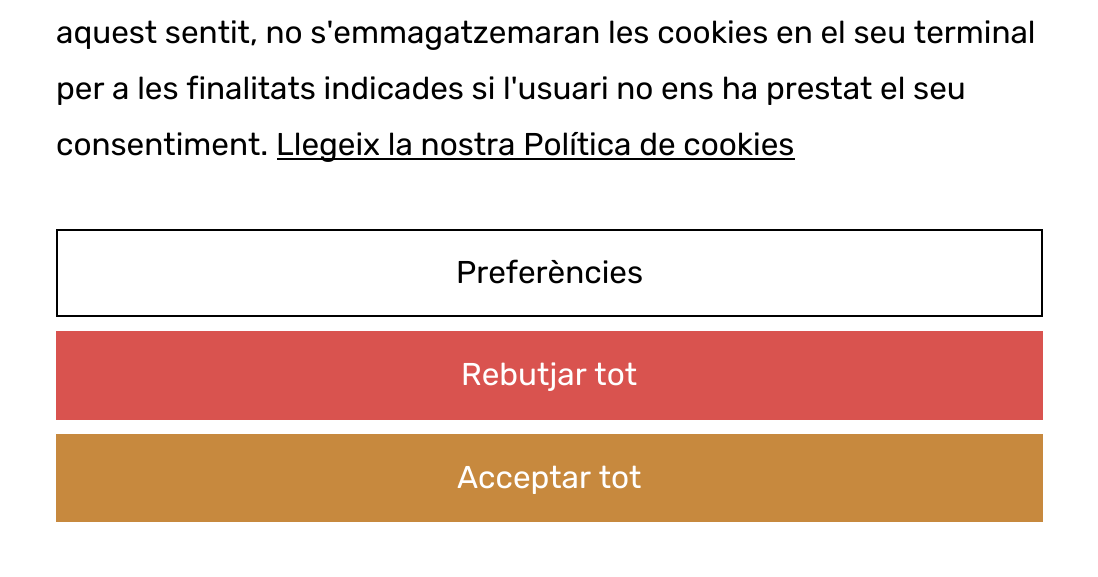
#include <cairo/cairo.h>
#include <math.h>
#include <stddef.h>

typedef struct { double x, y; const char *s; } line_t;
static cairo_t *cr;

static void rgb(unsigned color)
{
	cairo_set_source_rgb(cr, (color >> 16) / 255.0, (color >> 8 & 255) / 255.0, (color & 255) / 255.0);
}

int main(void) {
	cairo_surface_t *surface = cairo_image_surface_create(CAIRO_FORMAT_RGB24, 1098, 577);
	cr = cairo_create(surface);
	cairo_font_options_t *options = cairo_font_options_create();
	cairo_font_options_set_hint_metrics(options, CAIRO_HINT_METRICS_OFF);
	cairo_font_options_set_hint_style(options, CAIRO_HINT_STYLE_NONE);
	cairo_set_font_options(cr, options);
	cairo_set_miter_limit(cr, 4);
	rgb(0xffffff);
	cairo_paint(cr);
	rgb(0x000000);
	cairo_rectangle(cr, 277, 158, 518, 2);
	cairo_fill(cr);
	cairo_rectangle(cr, 57, 230, 985, 86);
	cairo_stroke(cr);
	rgb(0xd9534f);
	cairo_rectangle(cr, 56, 331, 987, 89);
	cairo_fill(cr);
	rgb(0xc7893e);
	cairo_rectangle(cr, 56, 434, 987, 88);
	cairo_fill(cr);
	cairo_select_font_face(cr, "Rubik", CAIRO_FONT_SLANT_NORMAL, CAIRO_FONT_WEIGHT_NORMAL);
	cairo_set_font_size(cr, 31.5);
	rgb(0x000000);
	{
		static const line_t items[] = {
			{56, 43, "aquest sentit, no s'emmagatzemaran les cookies en el seu terminal"},
			{56, 99, "per a les finalitats indicades si l'usuari no ens ha prestat el seu"},
			{56, 155, "consentiment."},
			{276, 155, "Llegeix la nostra Política de cookies"},
			{456, 283, "Preferències"},
		};
		for (size_t i = 0; i < sizeof items / sizeof *items; i++) {
			cairo_move_to(cr, items[i].x, items[i].y);
			cairo_show_text(cr, items[i].s);
		}
	}
	rgb(0xffffff);
	cairo_move_to(cr, 461, 385);
	cairo_show_text(cr, "Rebutjar tot");
	cairo_move_to(cr, 457, 488);
	cairo_show_text(cr, "Acceptar tot");
	cairo_surface_write_to_png(surface, "page.png");
	cairo_font_options_destroy(options);
	cairo_destroy(cr);
	cairo_surface_destroy(surface);
	return 0;
}
